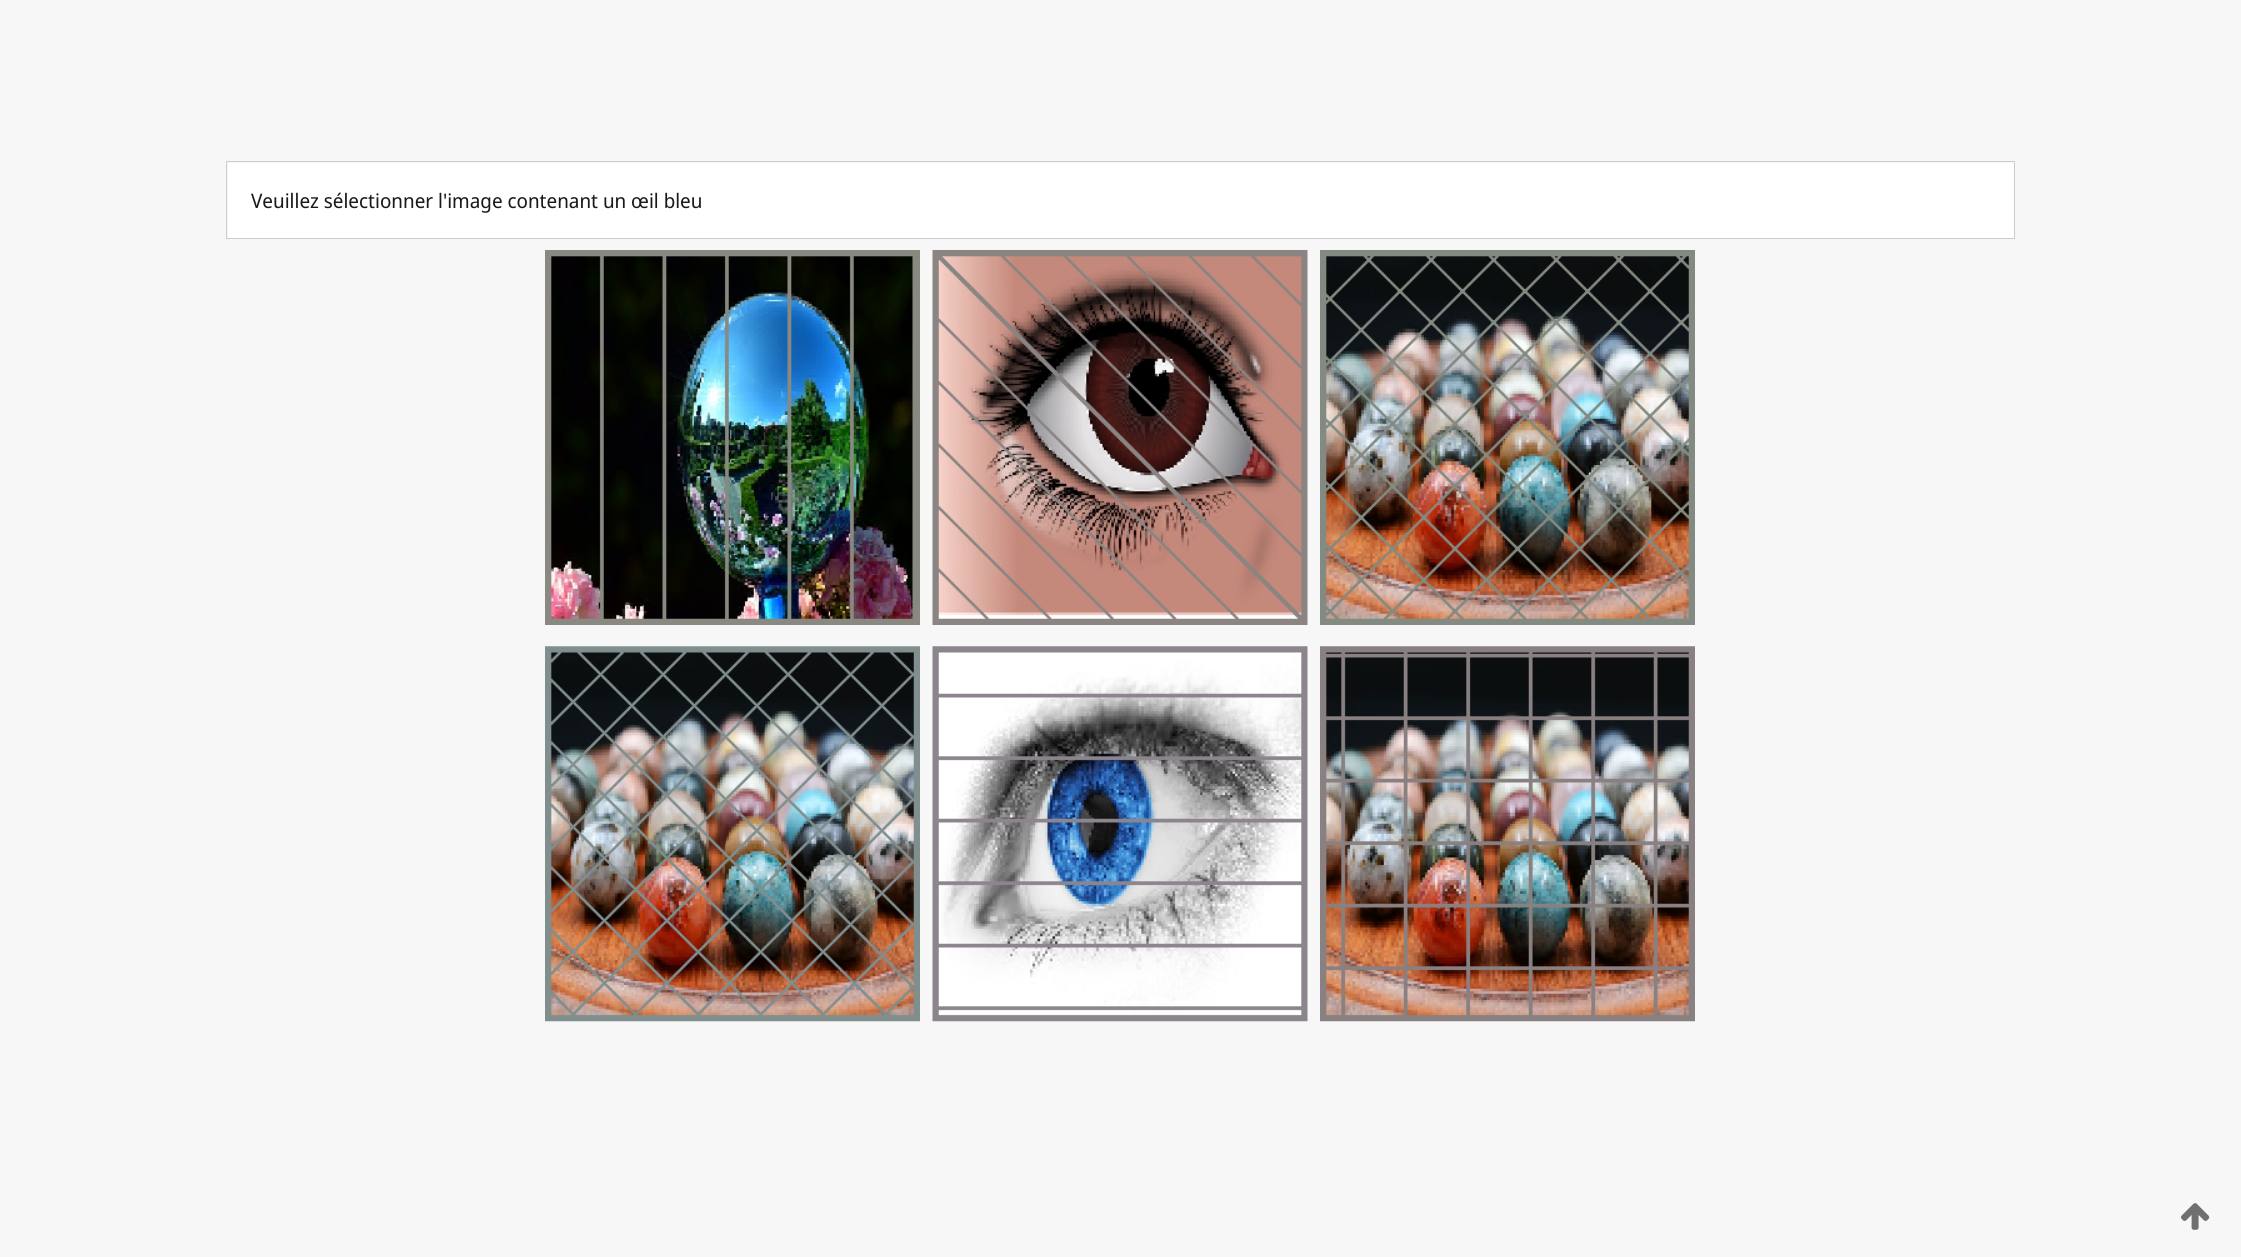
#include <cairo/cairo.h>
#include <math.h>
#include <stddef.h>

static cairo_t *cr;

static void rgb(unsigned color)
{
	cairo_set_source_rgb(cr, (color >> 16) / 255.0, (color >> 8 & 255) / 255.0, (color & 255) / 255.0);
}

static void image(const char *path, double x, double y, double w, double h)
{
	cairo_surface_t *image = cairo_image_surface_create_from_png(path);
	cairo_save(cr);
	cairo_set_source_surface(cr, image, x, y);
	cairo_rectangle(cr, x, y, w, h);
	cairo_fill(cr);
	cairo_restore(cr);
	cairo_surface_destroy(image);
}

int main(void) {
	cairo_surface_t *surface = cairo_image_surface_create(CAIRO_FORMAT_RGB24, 2241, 1257);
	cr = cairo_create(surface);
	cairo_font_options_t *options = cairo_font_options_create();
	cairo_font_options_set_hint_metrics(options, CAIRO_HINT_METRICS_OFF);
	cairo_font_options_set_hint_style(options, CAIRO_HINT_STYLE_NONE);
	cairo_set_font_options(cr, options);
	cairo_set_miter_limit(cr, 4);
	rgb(0xf7f7f7);
	cairo_paint(cr);
	rgb(0xffffff);
	cairo_rectangle(cr, 228, 163, 1786, 75);
	cairo_fill(cr);
	cairo_rectangle(cr, 226.5, 161.5, 1788, 77);
	rgb(0xcccccc);
	cairo_set_line_width(cr, 1);
	cairo_stroke(cr);
	image("img/1.png", 545, 250, 375, 375);
	image("img/2.png", 932, 250, 376, 375);
	image("img/3.png", 1320, 250, 375, 375);
	image("img/4.png", 545, 646, 375, 376);
	image("img/5.png", 932, 646, 376, 376);
	image("img/6.png", 1320, 646, 375, 376);
	image("img/7.png", 2181, 1203, 29, 27);
	cairo_select_font_face(cr, "Noto Sans Display", CAIRO_FONT_SLANT_NORMAL, CAIRO_FONT_WEIGHT_NORMAL);
	cairo_set_font_size(cr, 20);
	rgb(0x1a1a1a);
	cairo_move_to(cr, 251, 208);
	cairo_show_text(cr, "Veuillez sélectionner l'image contenant un œil bleu");
	cairo_surface_write_to_png(surface, "page.png");
	cairo_font_options_destroy(options);
	cairo_destroy(cr);
	cairo_surface_destroy(surface);
	return 0;
}
